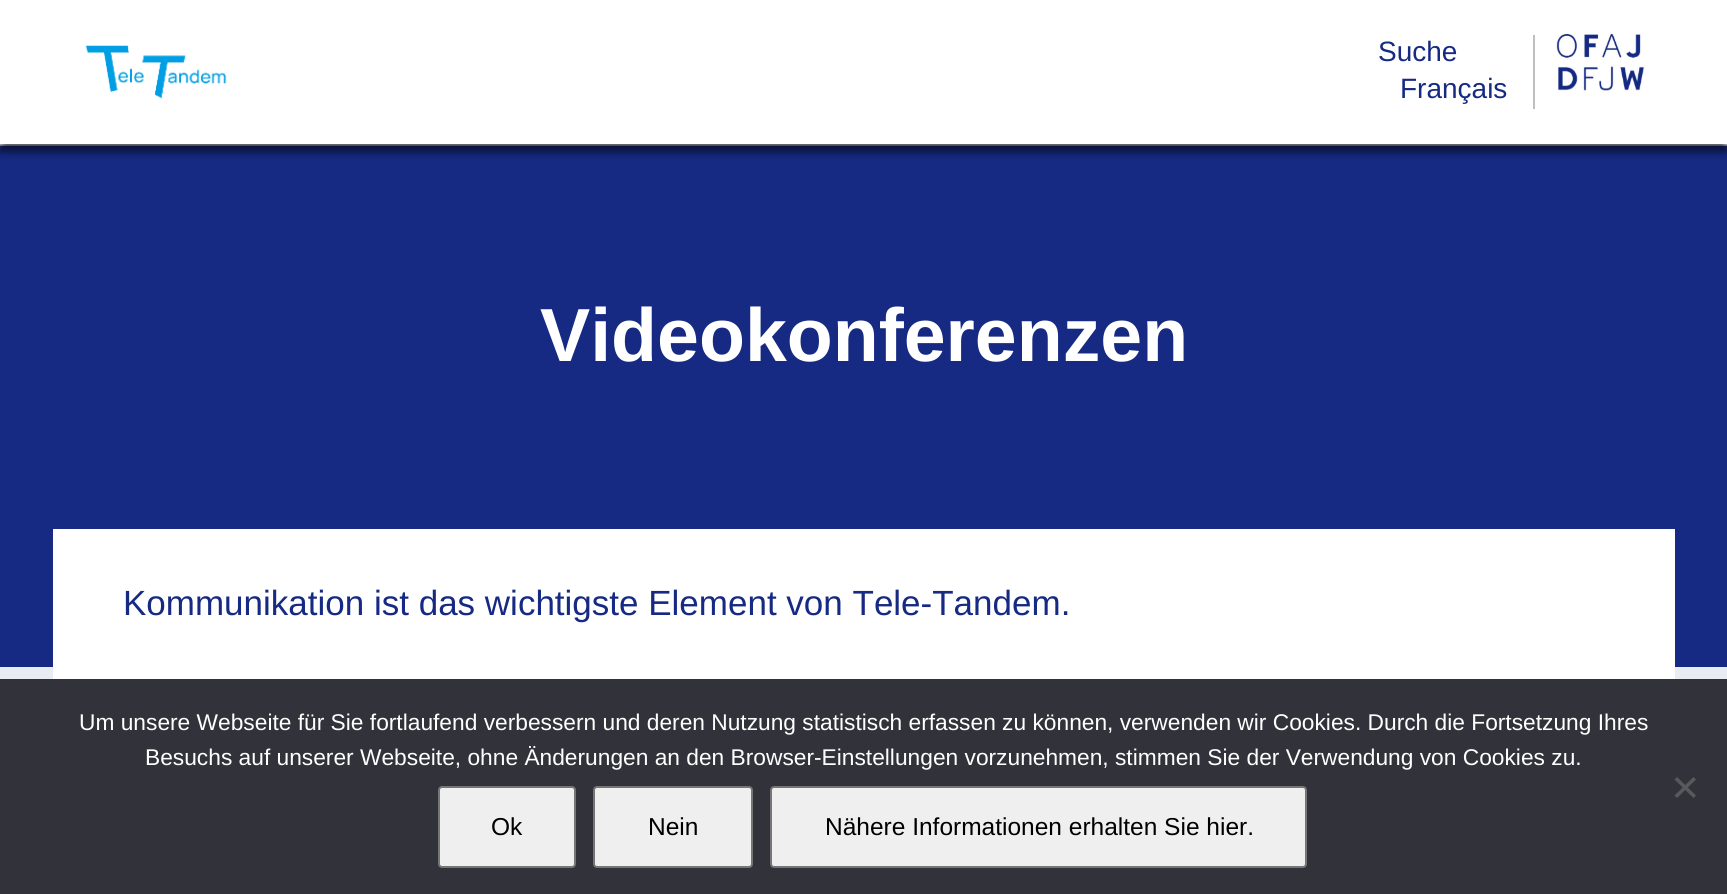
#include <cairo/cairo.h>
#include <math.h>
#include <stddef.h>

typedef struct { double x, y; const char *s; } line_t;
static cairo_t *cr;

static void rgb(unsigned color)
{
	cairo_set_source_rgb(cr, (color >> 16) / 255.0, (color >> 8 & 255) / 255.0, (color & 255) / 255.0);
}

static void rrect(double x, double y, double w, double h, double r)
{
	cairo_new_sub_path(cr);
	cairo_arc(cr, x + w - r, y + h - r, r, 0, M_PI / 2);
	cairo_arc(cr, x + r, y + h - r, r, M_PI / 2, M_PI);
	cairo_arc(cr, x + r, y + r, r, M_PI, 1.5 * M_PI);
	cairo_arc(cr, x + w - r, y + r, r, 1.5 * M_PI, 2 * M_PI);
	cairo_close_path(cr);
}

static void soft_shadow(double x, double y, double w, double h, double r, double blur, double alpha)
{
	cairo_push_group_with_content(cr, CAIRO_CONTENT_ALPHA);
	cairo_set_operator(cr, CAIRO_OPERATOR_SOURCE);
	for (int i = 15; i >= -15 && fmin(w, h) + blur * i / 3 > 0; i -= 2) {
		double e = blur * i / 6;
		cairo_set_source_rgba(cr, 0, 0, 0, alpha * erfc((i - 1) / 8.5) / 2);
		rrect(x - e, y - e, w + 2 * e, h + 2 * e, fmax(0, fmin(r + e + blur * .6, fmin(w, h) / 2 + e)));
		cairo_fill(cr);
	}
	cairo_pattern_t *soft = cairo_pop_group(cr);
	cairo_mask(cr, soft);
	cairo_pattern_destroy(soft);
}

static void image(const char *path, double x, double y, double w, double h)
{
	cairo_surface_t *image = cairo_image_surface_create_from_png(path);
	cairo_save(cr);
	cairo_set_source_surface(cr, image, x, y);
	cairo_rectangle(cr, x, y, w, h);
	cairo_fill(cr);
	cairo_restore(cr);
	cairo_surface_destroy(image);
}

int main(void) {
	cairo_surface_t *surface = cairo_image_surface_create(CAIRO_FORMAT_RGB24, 1727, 894);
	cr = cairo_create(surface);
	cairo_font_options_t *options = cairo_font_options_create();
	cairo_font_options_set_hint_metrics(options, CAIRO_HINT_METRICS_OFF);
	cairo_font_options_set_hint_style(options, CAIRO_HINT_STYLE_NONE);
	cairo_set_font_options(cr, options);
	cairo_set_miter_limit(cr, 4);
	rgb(0xe9ecf3);
	cairo_paint(cr);
	rgb(0x162a83);
	cairo_rectangle(cr, 0, 146, 1727, 521);
	cairo_fill(cr);
	rgb(0xaab2d1);
	cairo_rectangle(cr, 0, 145, 1727, 1);
	cairo_fill(cr);
	rgb(0x000000);
	soft_shadow(0, 9, 1727, 143, 0, 4.5, 0.6);
	rgb(0xffffff);
	cairo_rectangle(cr, 0, 0, 1727, 144);
	cairo_fill(cr);
	image("img/1.png", 85, 45, 142, 54);
	rgb(0xbebebe);
	cairo_rectangle(cr, 1533, 35, 2, 74);
	cairo_fill(cr);
	image("img/2.png", 1555, 33, 90, 58);
	rgb(0xffffff);
	cairo_rectangle(cr, 53, 529, 1622, 150);
	cairo_fill(cr);
	rgb(0x32323a);
	cairo_rectangle(cr, 0, 679, 1727, 215);
	cairo_fill(cr);
	rgb(0x59595d);
	cairo_new_path(cr);
	cairo_move_to(cr, 1693.5, 777);
	cairo_line_to(cr, 1696, 779.5);
	cairo_line_to(cr, 1677, 798);
	cairo_line_to(cr, 1674.5, 795.5);
	cairo_close_path(cr);
	cairo_fill(cr);
	cairo_new_path(cr);
	cairo_move_to(cr, 1674.5, 779.5);
	cairo_line_to(cr, 1677, 777);
	cairo_line_to(cr, 1696, 795.5);
	cairo_line_to(cr, 1693.5, 798);
	cairo_close_path(cr);
	cairo_fill(cr);
	rgb(0xefefef);
	rrect(439, 787, 136, 80, 3);
	cairo_fill_preserve(cr);
	rgb(0x767676);
	cairo_stroke(cr);
	rgb(0xefefef);
	rrect(594, 787, 158, 80, 3);
	cairo_fill_preserve(cr);
	rgb(0x767676);
	cairo_stroke(cr);
	rgb(0xefefef);
	rrect(771, 787, 535, 80, 3);
	cairo_fill_preserve(cr);
	rgb(0x767676);
	cairo_stroke(cr);
	cairo_select_font_face(cr, "Liberation Sans", CAIRO_FONT_SLANT_NORMAL, CAIRO_FONT_WEIGHT_NORMAL);
	cairo_set_font_size(cr, 28);
	rgb(0x162a83);
	cairo_move_to(cr, 1378, 61);
	cairo_show_text(cr, "Suche");
	cairo_move_to(cr, 1400, 98);
	cairo_show_text(cr, "Français");
	cairo_select_font_face(cr, "Liberation Sans", CAIRO_FONT_SLANT_NORMAL, CAIRO_FONT_WEIGHT_BOLD);
	cairo_set_font_size(cr, 75.25);
	rgb(0xffffff);
	cairo_move_to(cr, 540, 361);
	cairo_show_text(cr, "Videokonferenzen");
	cairo_select_font_face(cr, "Liberation Sans", CAIRO_FONT_SLANT_NORMAL, CAIRO_FONT_WEIGHT_NORMAL);
	cairo_set_font_size(cr, 35);
	rgb(0x162a83);
	cairo_move_to(cr, 123, 615);
	cairo_show_text(cr, "Kommunikation ist das wichtigste Element von Tele-Tandem.");
	cairo_set_font_size(cr, 22.75);
	rgb(0xffffff);
	cairo_move_to(cr, 79, 730);
	cairo_show_text(cr, "Um unsere Webseite für Sie fortlaufend verbessern und deren Nutzung statistisch erfassen zu können, verwenden wir Cookies. Durch die Fortsetzung Ihres");
	cairo_move_to(cr, 145, 765);
	cairo_show_text(cr, "Besuchs auf unserer Webseite, ohne Änderungen an den Browser-Einstellungen vorzunehmen, stimmen Sie der Verwendung von Cookies zu.");
	cairo_set_font_size(cr, 24.5);
	rgb(0x000000);
	{
		static const line_t items[] = {
			{491, 835, "Ok"},
			{648, 835, "Nein"},
			{825, 835, "Nähere Informationen erhalten Sie hier."},
		};
		for (size_t i = 0; i < sizeof items / sizeof *items; i++) {
			cairo_move_to(cr, items[i].x, items[i].y);
			cairo_show_text(cr, items[i].s);
		}
	}
	cairo_surface_write_to_png(surface, "page.png");
	cairo_font_options_destroy(options);
	cairo_destroy(cr);
	cairo_surface_destroy(surface);
	return 0;
}
